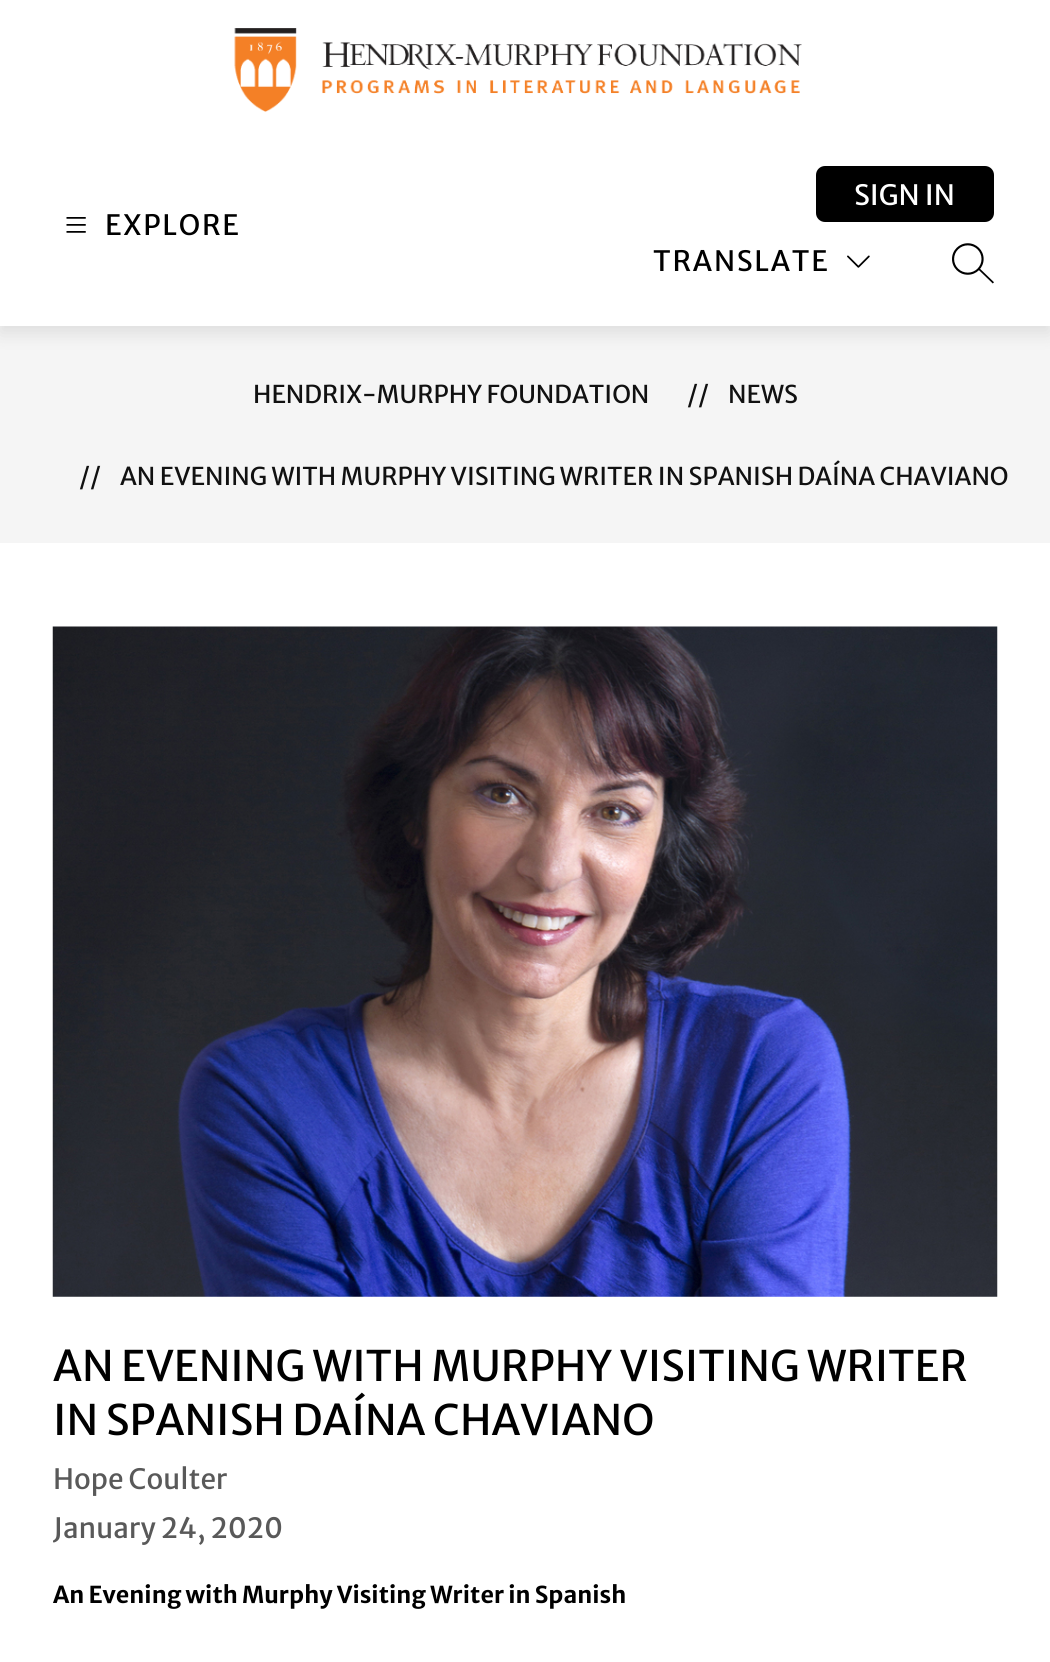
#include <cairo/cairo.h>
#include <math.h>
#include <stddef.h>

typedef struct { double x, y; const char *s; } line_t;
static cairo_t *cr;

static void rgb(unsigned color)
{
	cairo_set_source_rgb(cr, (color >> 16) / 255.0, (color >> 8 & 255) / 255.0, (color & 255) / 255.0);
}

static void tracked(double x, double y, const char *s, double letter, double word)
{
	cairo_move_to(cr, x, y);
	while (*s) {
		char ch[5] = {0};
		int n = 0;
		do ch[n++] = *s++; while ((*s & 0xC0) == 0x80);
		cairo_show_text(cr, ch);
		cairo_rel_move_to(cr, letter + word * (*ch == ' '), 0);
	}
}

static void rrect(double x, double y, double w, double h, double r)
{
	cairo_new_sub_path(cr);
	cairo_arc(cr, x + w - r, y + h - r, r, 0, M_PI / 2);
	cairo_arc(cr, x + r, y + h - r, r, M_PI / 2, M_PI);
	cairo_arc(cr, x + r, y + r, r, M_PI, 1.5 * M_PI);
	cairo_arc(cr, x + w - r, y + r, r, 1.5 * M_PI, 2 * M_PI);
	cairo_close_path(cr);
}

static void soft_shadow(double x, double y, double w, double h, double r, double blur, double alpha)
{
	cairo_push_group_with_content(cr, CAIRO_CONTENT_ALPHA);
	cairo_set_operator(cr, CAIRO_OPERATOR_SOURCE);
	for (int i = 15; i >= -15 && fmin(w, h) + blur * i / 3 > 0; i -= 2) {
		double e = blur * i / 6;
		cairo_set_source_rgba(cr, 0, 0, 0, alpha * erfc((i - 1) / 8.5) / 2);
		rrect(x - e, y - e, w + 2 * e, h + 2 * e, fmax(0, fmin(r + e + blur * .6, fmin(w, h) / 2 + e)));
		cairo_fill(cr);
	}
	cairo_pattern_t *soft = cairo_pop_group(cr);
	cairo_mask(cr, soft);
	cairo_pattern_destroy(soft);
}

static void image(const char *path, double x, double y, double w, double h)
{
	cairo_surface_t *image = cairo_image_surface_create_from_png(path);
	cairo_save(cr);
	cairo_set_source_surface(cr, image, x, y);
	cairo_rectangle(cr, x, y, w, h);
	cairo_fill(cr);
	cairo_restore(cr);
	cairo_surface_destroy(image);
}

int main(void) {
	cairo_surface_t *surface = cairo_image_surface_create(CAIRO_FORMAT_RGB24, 1050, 1662);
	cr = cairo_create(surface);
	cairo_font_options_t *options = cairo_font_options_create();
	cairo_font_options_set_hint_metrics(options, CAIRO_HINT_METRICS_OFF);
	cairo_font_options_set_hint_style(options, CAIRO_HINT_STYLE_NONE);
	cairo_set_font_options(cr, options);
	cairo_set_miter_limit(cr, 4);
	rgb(0xffffff);
	cairo_paint(cr);
	rgb(0xf5f5f5);
	cairo_rectangle(cr, 0, 326, 1050, 217);
	cairo_fill(cr);
	rgb(0x000000);
	soft_shadow(0, 7, 1050, 326, 0, 9, 0.1);
	rgb(0xffffff);
	cairo_rectangle(cr, 0, 0, 1050, 326);
	cairo_fill(cr);
	image("img/1.png", 234, 28, 568, 84);
	image("img/2.png", 66, 217, 20, 16);
	rgb(0x000000);
	rrect(817, 167, 176, 54, 8);
	cairo_fill_preserve(cr);
	cairo_stroke(cr);
	image("img/3.png", 847, 255, 23, 13);
	image("img/4.png", 952, 243, 42, 41);
	image("img/5.png", 52, 626, 946, 671);
	cairo_select_font_face(cr, "Merriweather Sans", CAIRO_FONT_SLANT_NORMAL, CAIRO_FONT_WEIGHT_NORMAL);
	cairo_set_font_size(cr, 28);
	tracked(105, 235, "EXPLORE", 1.75, 0);
	rgb(0xffffff);
	cairo_move_to(cr, 854, 205);
	cairo_show_text(cr, "SIGN IN");
	rgb(0x000000);
	tracked(653, 271, "TRANSLATE", 1.75, 0);
	cairo_set_font_size(cr, 24.5);
	rgb(0x111111);
	{
		static const line_t items[] = {
			{253, 403, "HENDRIX-MURPHY FOUNDATION"},
			{687, 403, "//"},
			{728, 403, "NEWS"},
			{79, 485, "//"},
			{120, 485, "AN EVENING WITH MURPHY VISITING WRITER IN SPANISH DAÍNA CHAVIANO"},
		};
		for (size_t i = 0; i < sizeof items / sizeof *items; i++) {
			cairo_move_to(cr, items[i].x, items[i].y);
			cairo_show_text(cr, items[i].s);
		}
	}
	cairo_set_font_size(cr, 42);
	rgb(0x000000);
	cairo_move_to(cr, 53, 1381);
	cairo_show_text(cr, "AN EVENING WITH MURPHY VISITING WRITER");
	cairo_move_to(cr, 53, 1435);
	cairo_show_text(cr, "IN SPANISH DAÍNA CHAVIANO");
	cairo_set_font_size(cr, 28);
	rgb(0x595959);
	cairo_move_to(cr, 53, 1489);
	cairo_show_text(cr, "Hope Coulter");
	cairo_save(cr);
	cairo_rectangle(cr, 53, 595, 945, 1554);
	cairo_clip(cr);
	cairo_move_to(cr, 53, 1538);
	cairo_show_text(cr, "January 24, 2020");
	cairo_restore(cr);
	cairo_select_font_face(cr, "Merriweather Sans", CAIRO_FONT_SLANT_NORMAL, CAIRO_FONT_WEIGHT_BOLD);
	cairo_set_font_size(cr, 23.25);
	rgb(0x000000);
	cairo_move_to(cr, 53, 1603);
	cairo_show_text(cr, "An Evening with Murphy Visiting Writer in Spanish");
	cairo_surface_write_to_png(surface, "page.png");
	cairo_font_options_destroy(options);
	cairo_destroy(cr);
	cairo_surface_destroy(surface);
	return 0;
}
